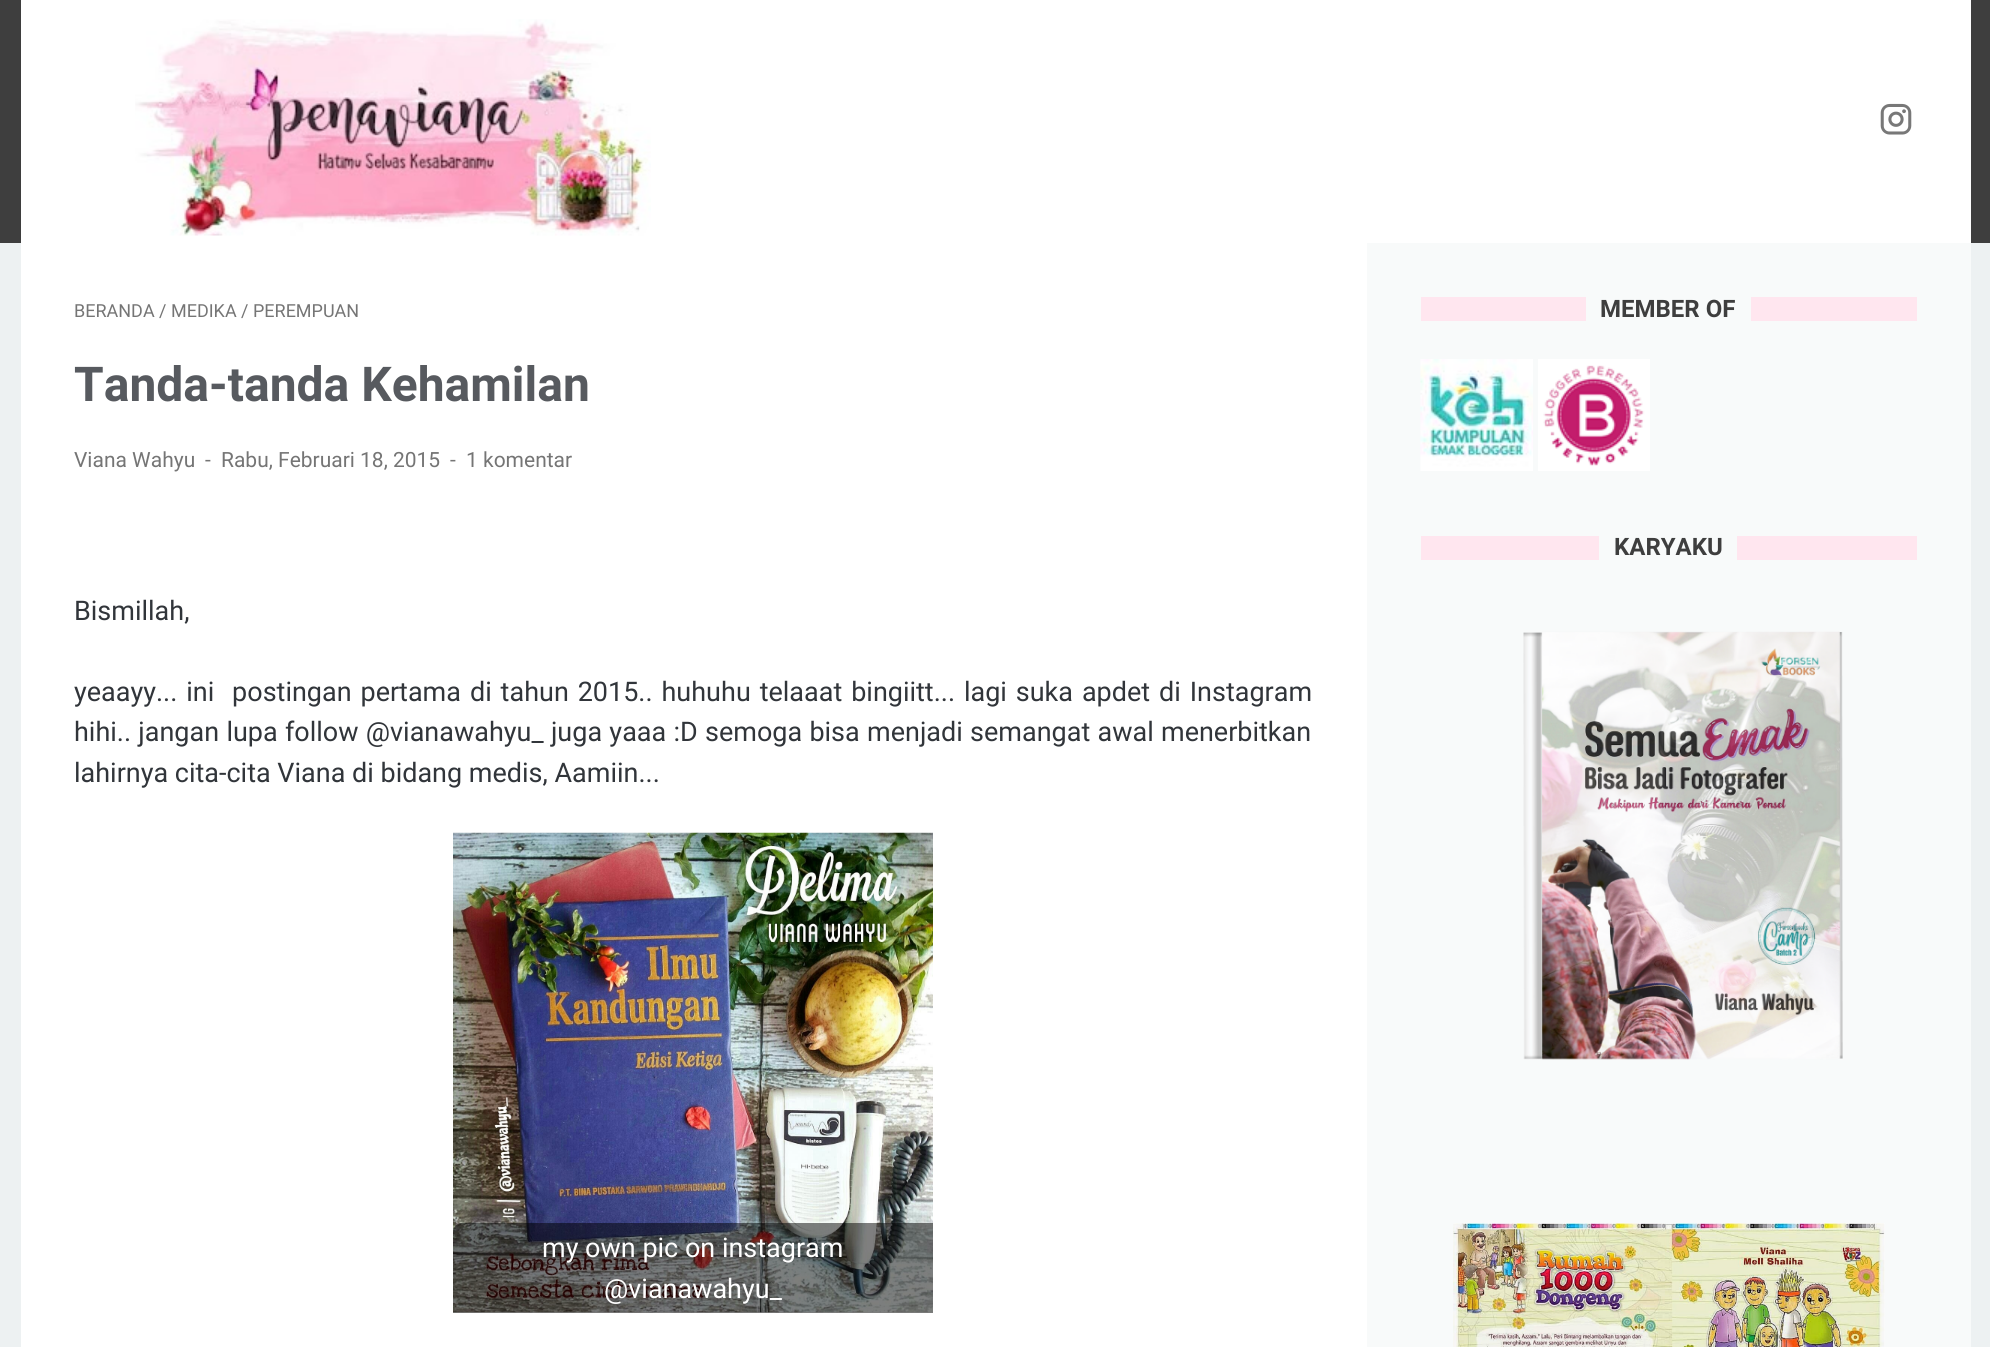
#include <cairo/cairo.h>
#include <math.h>
#include <stddef.h>

typedef struct { double x, y; const char *s; } line_t;
typedef struct { double x, y, w, h; unsigned color; } box_t;
static cairo_t *cr;

static void rgb(unsigned color)
{
	cairo_set_source_rgb(cr, (color >> 16) / 255.0, (color >> 8 & 255) / 255.0, (color & 255) / 255.0);
}

static void tracked(double x, double y, const char *s, double letter, double word)
{
	cairo_move_to(cr, x, y);
	while (*s) {
		char ch[5] = {0};
		int n = 0;
		do ch[n++] = *s++; while ((*s & 0xC0) == 0x80);
		cairo_show_text(cr, ch);
		cairo_rel_move_to(cr, letter + word * (*ch == ' '), 0);
	}
}

static void image(const char *path, double x, double y, double w, double h)
{
	cairo_surface_t *image = cairo_image_surface_create_from_png(path);
	cairo_save(cr);
	cairo_set_source_surface(cr, image, x, y);
	cairo_rectangle(cr, x, y, w, h);
	cairo_fill(cr);
	cairo_restore(cr);
	cairo_surface_destroy(image);
}

int main(void) {
	cairo_surface_t *surface = cairo_image_surface_create(CAIRO_FORMAT_RGB24, 1990, 1347);
	cr = cairo_create(surface);
	cairo_font_options_t *options = cairo_font_options_create();
	cairo_font_options_set_hint_metrics(options, CAIRO_HINT_METRICS_OFF);
	cairo_font_options_set_hint_style(options, CAIRO_HINT_STYLE_NONE);
	cairo_set_font_options(cr, options);
	cairo_set_miter_limit(cr, 4);
	rgb(0xedf1f2);
	cairo_paint(cr);
	rgb(0x3e3e3e);
	cairo_rectangle(cr, 0, 0, 1990, 243);
	cairo_fill(cr);
	rgb(0xffffff);
	cairo_rectangle(cr, 21, 0, 1950, 243);
	cairo_fill(cr);
	image("img/1.png", 135, 19, 516, 217);
	image("img/2.png", 1880, 103, 32, 32);
	cairo_rectangle(cr, 21, 243, 1346, 1104);
	cairo_fill(cr);
	image("img/3.png", 453, 832, 480, 481);
	cairo_set_source_rgba(cr, 0, 0, 0, 0.5);
	cairo_new_path(cr);
	cairo_move_to(cr, 462, 1223);
	cairo_line_to(cr, 933, 1223);
	cairo_line_to(cr, 933, 1313);
	cairo_line_to(cr, 453, 1313);
	cairo_line_to(cr, 453, 1232);
	cairo_curve_to(cr, 453, 1227, 457, 1223, 462, 1223);
	cairo_close_path(cr);
	cairo_fill(cr);
	{
		static const box_t items[] = {
			{1367, 243, 604, 1104, 0xf8fafa},
			{1421, 297, 496, 24, 0xffe6ef},
			{1586, 297, 165, 24, 0xf8fafa},
		};
		for (size_t i = 0; i < sizeof items / sizeof *items; i++) {
			rgb(items[i].color);
			cairo_rectangle(cr, items[i].x, items[i].y, items[i].w, items[i].h);
			cairo_fill(cr);
		}
	}
	image("img/4.png", 1420, 359, 113, 112);
	image("img/5.png", 1538, 359, 112, 112);
	rgb(0xffe6ef);
	cairo_rectangle(cr, 1421, 536, 496, 24);
	cairo_fill(cr);
	rgb(0xf8fafa);
	cairo_rectangle(cr, 1599, 536, 138, 24);
	cairo_fill(cr);
	image("img/6.png", 1523, 631, 320, 429);
	image("img/7.png", 1453, 1223, 432, 124);
	cairo_select_font_face(cr, "Roboto", CAIRO_FONT_SLANT_NORMAL, CAIRO_FONT_WEIGHT_NORMAL);
	cairo_set_font_size(cr, 18);
	rgb(0x757575);
	cairo_move_to(cr, 74, 317);
	cairo_show_text(cr, "BERANDA / MEDIKA / PEREMPUAN");
	cairo_select_font_face(cr, "Roboto", CAIRO_FONT_SLANT_NORMAL, CAIRO_FONT_WEIGHT_BOLD);
	cairo_set_font_size(cr, 48);
	rgb(0x575a5f);
	cairo_move_to(cr, 74, 401);
	cairo_show_text(cr, "Tanda-tanda Kehamilan");
	cairo_select_font_face(cr, "Roboto", CAIRO_FONT_SLANT_NORMAL, CAIRO_FONT_WEIGHT_NORMAL);
	cairo_set_font_size(cr, 21);
	rgb(0x757575);
	{
		static const line_t items[] = {
			{74, 467, "Viana Wahyu"},
			{205, 467, "-"},
			{221, 467, "Rabu, Februari 18, 2015"},
			{450, 467, "-"},
			{466, 467, "1 komentar"},
		};
		for (size_t i = 0; i < sizeof items / sizeof *items; i++) {
			cairo_move_to(cr, items[i].x, items[i].y);
			cairo_show_text(cr, items[i].s);
		}
	}
	cairo_set_font_size(cr, 27);
	rgb(0x31353a);
	cairo_move_to(cr, 74, 620);
	cairo_show_text(cr, "Bismillah,");
	tracked(74, 701, "yeaayy... ini  postingan pertama di tahun 2015.. huhuhu telaaat bingiitt... lagi suka apdet di Instagram", 0, 2.25);
	tracked(74, 741, "hihi.. jangan lupa follow @vianawahyu_ juga yaaa :D semoga bisa menjadi semangat awal menerbitkan", 0, 0.6);
	cairo_move_to(cr, 74, 782);
	cairo_show_text(cr, "lahirnya cita-cita Viana di bidang medis, Aamiin...");
	rgb(0xffffff);
	cairo_move_to(cr, 542, 1257);
	cairo_show_text(cr, "my own pic on instagram");
	cairo_move_to(cr, 604, 1298);
	cairo_show_text(cr, "@vianawahyu_");
	cairo_select_font_face(cr, "Roboto", CAIRO_FONT_SLANT_NORMAL, CAIRO_FONT_WEIGHT_BOLD);
	cairo_set_font_size(cr, 24);
	rgb(0x3e3e3e);
	cairo_move_to(cr, 1600, 317);
	cairo_show_text(cr, "MEMBER OF");
	cairo_move_to(cr, 1614, 555);
	cairo_show_text(cr, "KARYAKU");
	cairo_surface_write_to_png(surface, "page.png");
	cairo_font_options_destroy(options);
	cairo_destroy(cr);
	cairo_surface_destroy(surface);
	return 0;
}
